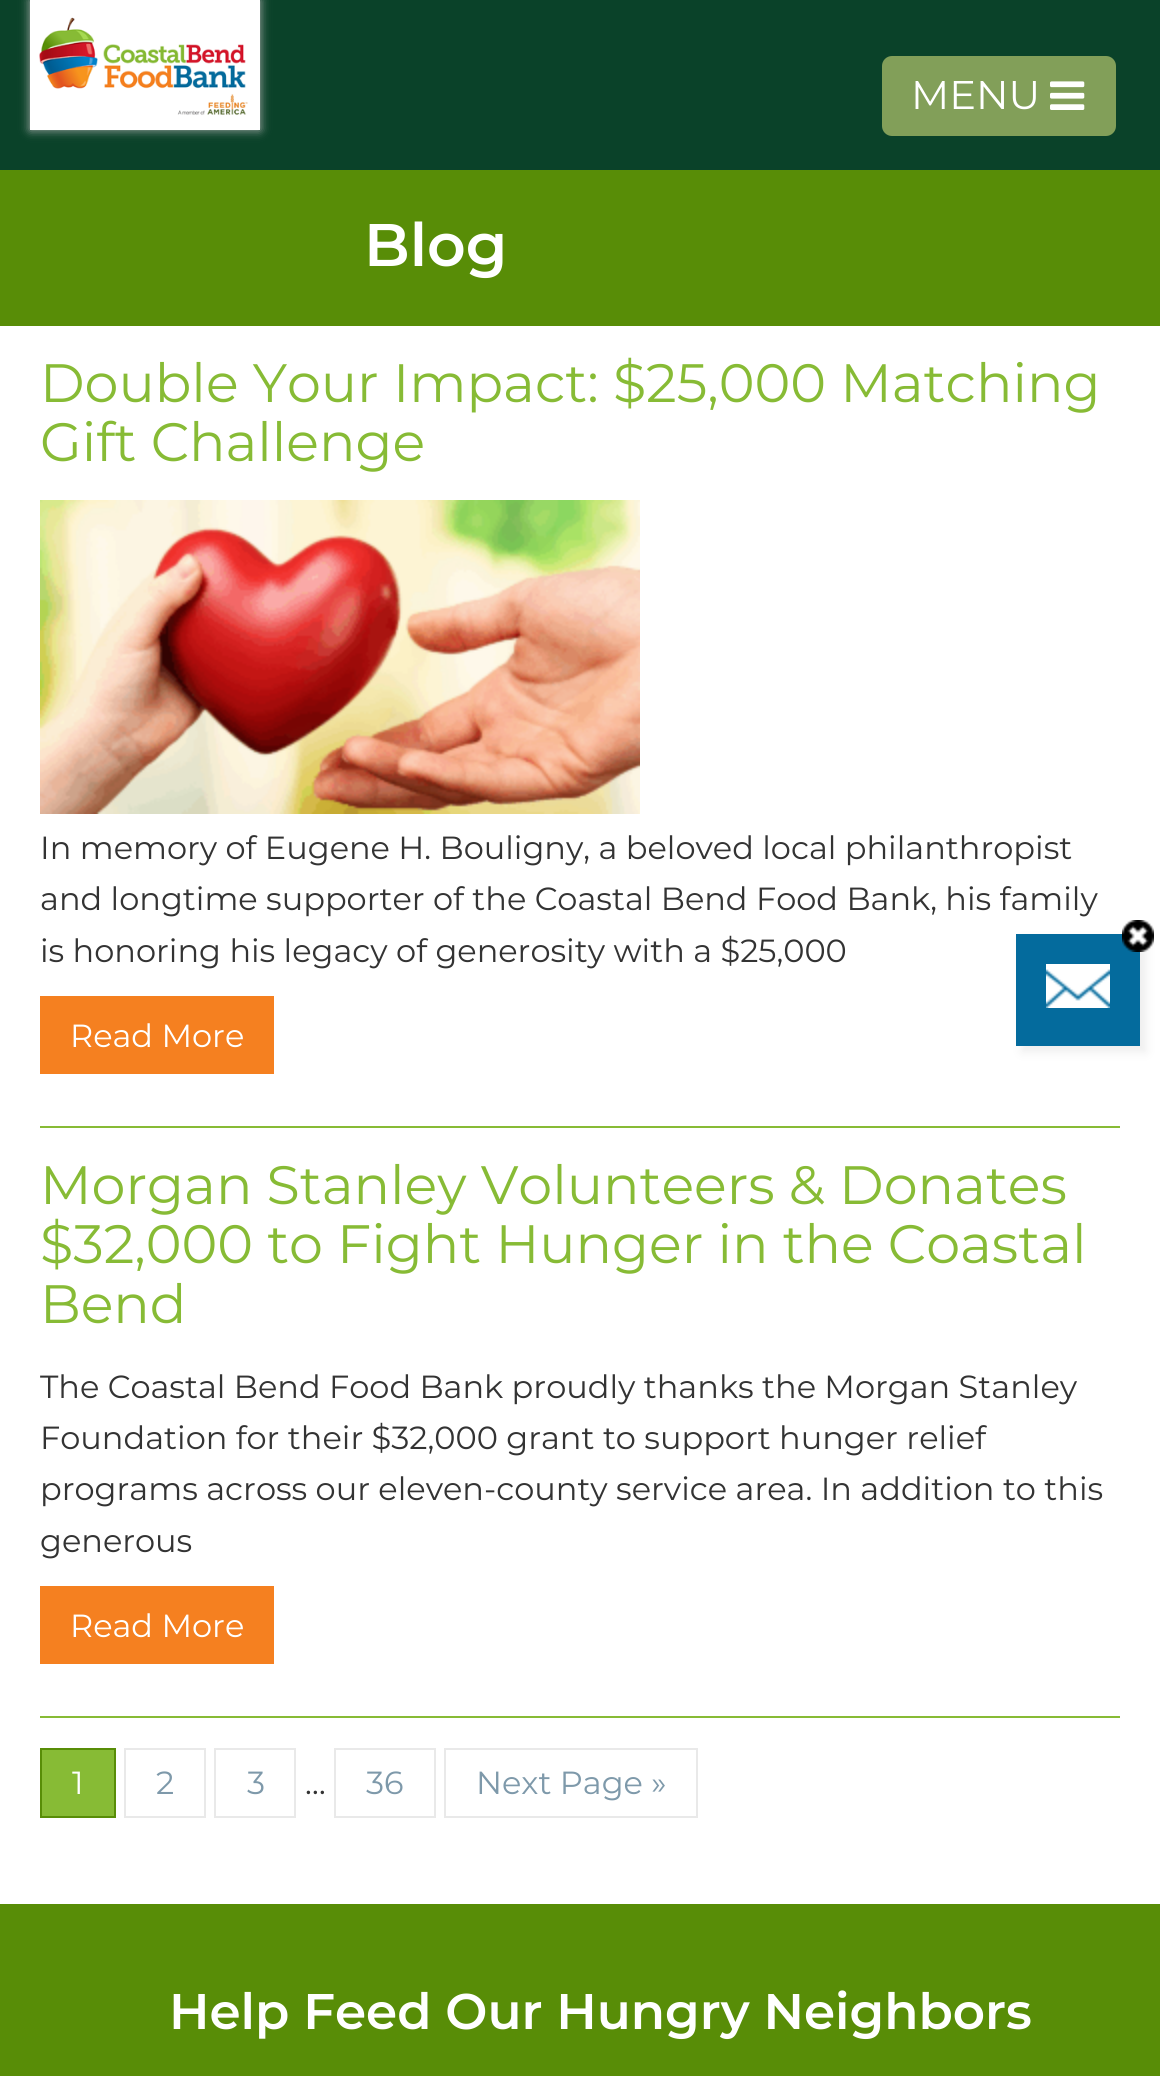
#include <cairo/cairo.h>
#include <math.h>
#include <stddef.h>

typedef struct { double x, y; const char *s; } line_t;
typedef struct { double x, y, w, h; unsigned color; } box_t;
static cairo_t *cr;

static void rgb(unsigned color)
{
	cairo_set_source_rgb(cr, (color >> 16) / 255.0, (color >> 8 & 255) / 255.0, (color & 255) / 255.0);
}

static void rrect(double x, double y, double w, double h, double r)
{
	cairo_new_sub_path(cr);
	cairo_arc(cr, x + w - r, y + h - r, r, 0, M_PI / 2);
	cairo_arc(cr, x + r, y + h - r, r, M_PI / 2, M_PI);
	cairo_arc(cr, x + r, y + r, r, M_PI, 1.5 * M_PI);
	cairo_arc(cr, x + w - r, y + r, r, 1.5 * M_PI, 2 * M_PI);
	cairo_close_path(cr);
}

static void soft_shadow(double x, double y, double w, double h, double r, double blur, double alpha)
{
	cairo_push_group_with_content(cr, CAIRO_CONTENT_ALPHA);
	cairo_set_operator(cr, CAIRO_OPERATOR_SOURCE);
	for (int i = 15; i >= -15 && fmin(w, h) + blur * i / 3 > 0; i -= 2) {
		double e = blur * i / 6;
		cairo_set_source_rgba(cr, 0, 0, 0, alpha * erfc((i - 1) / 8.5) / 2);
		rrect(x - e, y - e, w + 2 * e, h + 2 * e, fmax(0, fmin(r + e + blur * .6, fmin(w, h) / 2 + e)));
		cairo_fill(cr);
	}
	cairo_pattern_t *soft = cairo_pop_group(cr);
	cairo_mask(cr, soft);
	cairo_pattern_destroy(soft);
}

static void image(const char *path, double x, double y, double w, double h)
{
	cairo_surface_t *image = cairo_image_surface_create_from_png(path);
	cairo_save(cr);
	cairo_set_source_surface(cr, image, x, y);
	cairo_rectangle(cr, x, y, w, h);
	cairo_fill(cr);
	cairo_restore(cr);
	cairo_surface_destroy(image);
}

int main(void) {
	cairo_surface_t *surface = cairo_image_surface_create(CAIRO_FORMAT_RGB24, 1160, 2076);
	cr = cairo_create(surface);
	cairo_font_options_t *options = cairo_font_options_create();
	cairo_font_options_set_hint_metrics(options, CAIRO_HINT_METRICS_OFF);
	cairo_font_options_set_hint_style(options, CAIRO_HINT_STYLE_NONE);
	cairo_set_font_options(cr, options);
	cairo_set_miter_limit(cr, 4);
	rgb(0xffffff);
	cairo_paint(cr);
	rgb(0x0a4229);
	cairo_rectangle(cr, 0, 0, 1160, 170);
	cairo_fill(cr);
	rgb(0xb0b0b0);
	soft_shadow(30, 0, 230, 130, 0, 5, 1);
	image("img/1.png", 30, 0, 230, 130);
	rgb(0x829f59);
	rrect(882, 56, 234, 80, 10);
	cairo_fill(cr);
	image("img/2.png", 1050, 81, 35, 29);
	rgb(0x588d07);
	cairo_rectangle(cr, 0, 170, 1160, 156);
	cairo_fill(cr);
	rgb(0x87bb35);
	cairo_rectangle(cr, 40, 1126, 1080, 2);
	cairo_fill(cr);
	image("img/3.png", 40, 500, 600, 314);
	{
		static const box_t items[] = {
			{40, 996, 234, 78, 0xf58020},
			{40, 1716, 1080, 2, 0x87bb35},
			{40, 1586, 234, 78, 0xf58020},
		};
		for (size_t i = 0; i < sizeof items / sizeof *items; i++) {
			rgb(items[i].color);
			cairo_rectangle(cr, items[i].x, items[i].y, items[i].w, items[i].h);
			cairo_fill(cr);
		}
	}
	rgb(0x87bb35);
	cairo_rectangle(cr, 41, 1749, 74, 68);
	cairo_fill_preserve(cr);
	rgb(0x588d07);
	cairo_stroke(cr);
	cairo_rectangle(cr, 125, 1749, 80, 68);
	rgb(0xe9e9e9);
	cairo_stroke(cr);
	cairo_rectangle(cr, 215, 1749, 80, 68);
	cairo_stroke(cr);
	cairo_rectangle(cr, 335, 1749, 100, 68);
	cairo_stroke(cr);
	cairo_rectangle(cr, 445, 1749, 252, 68);
	cairo_stroke(cr);
	rgb(0xeeeeee);
	soft_shadow(1022, 940, 124, 112, 0, 5, 1);
	rgb(0x046b9d);
	cairo_rectangle(cr, 1016, 934, 124, 112);
	cairo_fill(cr);
	image("img/4.png", 1122, 920, 32, 32);
	image("img/5.png", 1046, 964, 64, 44);
	rgb(0x588d07);
	cairo_rectangle(cr, 0, 1904, 1160, 172);
	cairo_fill(cr);
	cairo_select_font_face(cr, "Montserrat", CAIRO_FONT_SLANT_NORMAL, CAIRO_FONT_WEIGHT_NORMAL);
	cairo_set_font_size(cr, 40);
	rgb(0xffffff);
	cairo_move_to(cr, 911, 109);
	cairo_show_text(cr, "MENU");
	cairo_select_font_face(cr, "Montserrat SemiBold", CAIRO_FONT_SLANT_NORMAL, CAIRO_FONT_WEIGHT_NORMAL);
	cairo_set_font_size(cr, 60);
	cairo_move_to(cr, 364, 266);
	cairo_show_text(cr, "Blog");
	cairo_select_font_face(cr, "Montserrat", CAIRO_FONT_SLANT_NORMAL, CAIRO_FONT_WEIGHT_NORMAL);
	cairo_set_font_size(cr, 54);
	rgb(0x87bb35);
	cairo_move_to(cr, 40, 402);
	cairo_show_text(cr, "Double Your Impact: $25,000 Matching");
	cairo_move_to(cr, 40, 461);
	cairo_show_text(cr, "Gift Challenge");
	cairo_set_font_size(cr, 32);
	rgb(0x333333);
	{
		static const line_t items[] = {
			{40, 859, "In memory of Eugene H. Bouligny, a beloved local philanthropist"},
			{40, 910, "and longtime supporter of the Coastal Bend Food Bank, his family"},
			{40, 962, "is honoring his legacy of generosity with a $25,000"},
		};
		for (size_t i = 0; i < sizeof items / sizeof *items; i++) {
			cairo_move_to(cr, items[i].x, items[i].y);
			cairo_show_text(cr, items[i].s);
		}
	}
	rgb(0xffffff);
	cairo_move_to(cr, 70, 1047);
	cairo_show_text(cr, "Read More");
	cairo_set_font_size(cr, 54);
	rgb(0x87bb35);
	{
		static const line_t items[] = {
			{40, 1204, "Morgan Stanley Volunteers & Donates"},
			{40, 1263, "$32,000 to Fight Hunger in the Coastal"},
			{40, 1323, "Bend"},
		};
		for (size_t i = 0; i < sizeof items / sizeof *items; i++) {
			cairo_move_to(cr, items[i].x, items[i].y);
			cairo_show_text(cr, items[i].s);
		}
	}
	cairo_set_font_size(cr, 32);
	rgb(0x333333);
	{
		static const line_t items[] = {
			{40, 1398, "The Coastal Bend Food Bank proudly thanks the Morgan Stanley"},
			{40, 1449, "Foundation for their $32,000 grant to support hunger relief"},
			{40, 1500, "programs across our eleven-county service area. In addition to this"},
			{40, 1552, "generous"},
		};
		for (size_t i = 0; i < sizeof items / sizeof *items; i++) {
			cairo_move_to(cr, items[i].x, items[i].y);
			cairo_show_text(cr, items[i].s);
		}
	}
	rgb(0xffffff);
	cairo_move_to(cr, 70, 1637);
	cairo_show_text(cr, "Read More");
	cairo_move_to(cr, 72, 1794);
	cairo_show_text(cr, "1");
	rgb(0x7e99aa);
	cairo_move_to(cr, 156, 1794);
	cairo_show_text(cr, "2");
	cairo_move_to(cr, 247, 1794);
	cairo_show_text(cr, "3");
	rgb(0x333333);
	cairo_move_to(cr, 305, 1794);
	cairo_show_text(cr, "…");
	rgb(0x7e99aa);
	cairo_move_to(cr, 366, 1794);
	cairo_show_text(cr, "36");
	cairo_move_to(cr, 476, 1794);
	cairo_show_text(cr, "Next Page »");
	cairo_select_font_face(cr, "Montserrat SemiBold", CAIRO_FONT_SLANT_NORMAL, CAIRO_FONT_WEIGHT_NORMAL);
	cairo_set_font_size(cr, 50);
	rgb(0xffffff);
	cairo_move_to(cr, 169, 2029);
	cairo_show_text(cr, "Help Feed Our Hungry Neighbors");
	cairo_surface_write_to_png(surface, "page.png");
	cairo_font_options_destroy(options);
	cairo_destroy(cr);
	cairo_surface_destroy(surface);
	return 0;
}
